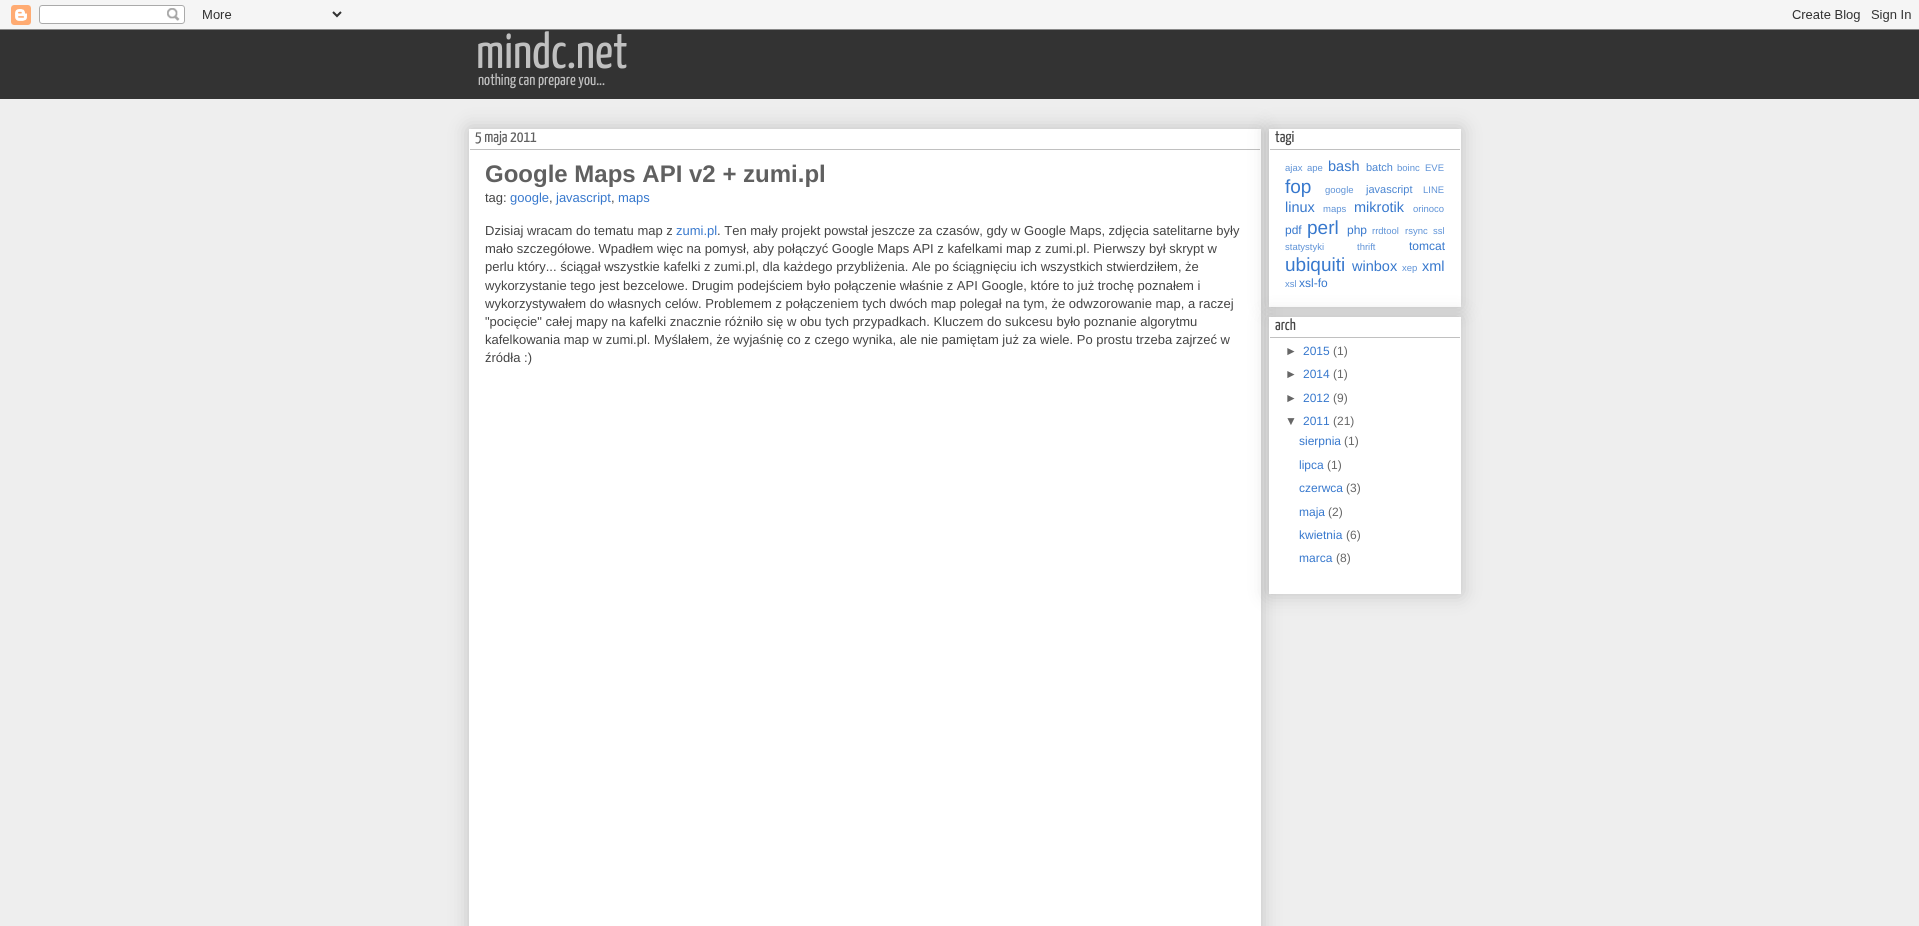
#include <cairo/cairo.h>
#include <math.h>
#include <stddef.h>

typedef struct { double x, y; const char *s; } line_t;
static cairo_t *cr;

static void rgb(unsigned color)
{
	cairo_set_source_rgb(cr, (color >> 16) / 255.0, (color >> 8 & 255) / 255.0, (color & 255) / 255.0);
}

static void rrect(double x, double y, double w, double h, double r)
{
	cairo_new_sub_path(cr);
	cairo_arc(cr, x + w - r, y + h - r, r, 0, M_PI / 2);
	cairo_arc(cr, x + r, y + h - r, r, M_PI / 2, M_PI);
	cairo_arc(cr, x + r, y + r, r, M_PI, 1.5 * M_PI);
	cairo_arc(cr, x + w - r, y + r, r, 1.5 * M_PI, 2 * M_PI);
	cairo_close_path(cr);
}

static void soft_shadow(double x, double y, double w, double h, double r, double blur, double alpha)
{
	cairo_push_group_with_content(cr, CAIRO_CONTENT_ALPHA);
	cairo_set_operator(cr, CAIRO_OPERATOR_SOURCE);
	for (int i = 15; i >= -15 && fmin(w, h) + blur * i / 3 > 0; i -= 2) {
		double e = blur * i / 6;
		cairo_set_source_rgba(cr, 0, 0, 0, alpha * erfc((i - 1) / 8.5) / 2);
		rrect(x - e, y - e, w + 2 * e, h + 2 * e, fmax(0, fmin(r + e + blur * .6, fmin(w, h) / 2 + e)));
		cairo_fill(cr);
	}
	cairo_pattern_t *soft = cairo_pop_group(cr);
	cairo_mask(cr, soft);
	cairo_pattern_destroy(soft);
}

static void image(const char *path, double x, double y, double w, double h)
{
	cairo_surface_t *image = cairo_image_surface_create_from_png(path);
	cairo_save(cr);
	cairo_set_source_surface(cr, image, x, y);
	cairo_rectangle(cr, x, y, w, h);
	cairo_fill(cr);
	cairo_restore(cr);
	cairo_surface_destroy(image);
}

int main(void) {
	cairo_surface_t *surface = cairo_image_surface_create(CAIRO_FORMAT_RGB24, 1919, 926);
	cr = cairo_create(surface);
	cairo_font_options_t *options = cairo_font_options_create();
	cairo_font_options_set_hint_metrics(options, CAIRO_HINT_METRICS_OFF);
	cairo_font_options_set_hint_style(options, CAIRO_HINT_STYLE_NONE);
	cairo_set_font_options(cr, options);
	cairo_set_miter_limit(cr, 4);
	rgb(0xeeeeee);
	cairo_paint(cr);
	image("img/1.png", 0, 0, 1919, 30);
	rgb(0x333333);
	cairo_rectangle(cr, 0, 30, 1919, 69);
	cairo_fill(cr);
	rgb(0x000000);
	soft_shadow(469, 129, 792, 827, 0, 10, 0.2);
	rgb(0xffffff);
	cairo_rectangle(cr, 469, 129, 792, 797);
	cairo_fill(cr);
	rgb(0xc0c0c0);
	cairo_rectangle(cr, 470, 149, 790, 1);
	cairo_fill(cr);
	rgb(0x000000);
	soft_shadow(1269, 129, 192, 178, 0, 10, 0.2);
	rgb(0xffffff);
	cairo_rectangle(cr, 1269, 129, 192, 178);
	cairo_fill(cr);
	rgb(0xc0c0c0);
	cairo_rectangle(cr, 1270, 149, 190, 1);
	cairo_fill(cr);
	rgb(0x000000);
	soft_shadow(1269, 317, 192, 277, 0, 10, 0.2);
	rgb(0xffffff);
	cairo_rectangle(cr, 1269, 317, 192, 277);
	cairo_fill(cr);
	rgb(0xc0c0c0);
	cairo_rectangle(cr, 1270, 337, 190, 1);
	cairo_fill(cr);
	cairo_select_font_face(cr, "Yanone Kaffeesatz ExtraLight", CAIRO_FONT_SLANT_NORMAL, CAIRO_FONT_WEIGHT_NORMAL);
	cairo_set_font_size(cr, 50);
	cairo_move_to(cr, 476, 68);
	cairo_show_text(cr, "mindc.net");
	cairo_set_font_size(cr, 16);
	cairo_move_to(cr, 478, 85);
	cairo_show_text(cr, "nothing can prepare you...");
	rgb(0x606060);
	cairo_move_to(cr, 475, 142);
	cairo_show_text(cr, "5 maja 2011");
	cairo_select_font_face(cr, "Liberation Sans", CAIRO_FONT_SLANT_NORMAL, CAIRO_FONT_WEIGHT_BOLD);
	cairo_set_font_size(cr, 24);
	cairo_move_to(cr, 485, 182);
	cairo_show_text(cr, "Google Maps API v2 + zumi.pl");
	cairo_select_font_face(cr, "Liberation Sans", CAIRO_FONT_SLANT_NORMAL, CAIRO_FONT_WEIGHT_NORMAL);
	cairo_set_font_size(cr, 13);
	rgb(0x444444);
	cairo_move_to(cr, 485, 202);
	cairo_show_text(cr, "tag:");
	rgb(0x3778cd);
	cairo_move_to(cr, 510, 202);
	cairo_show_text(cr, "google");
	rgb(0x444444);
	cairo_move_to(cr, 549, 202);
	cairo_show_text(cr, ",");
	rgb(0x3778cd);
	cairo_move_to(cr, 556, 202);
	cairo_show_text(cr, "javascript");
	rgb(0x444444);
	cairo_move_to(cr, 611, 202);
	cairo_show_text(cr, ",");
	rgb(0x3778cd);
	cairo_move_to(cr, 618, 202);
	cairo_show_text(cr, "maps");
	rgb(0x444444);
	cairo_move_to(cr, 485, 235);
	cairo_show_text(cr, "Dzisiaj wracam do tematu map z");
	rgb(0x3778cd);
	cairo_move_to(cr, 676, 235);
	cairo_show_text(cr, "zumi.pl");
	rgb(0x444444);
	{
		static const line_t items[] = {
			{717, 235, ". Ten mały projekt powstał jeszcze za czasów, gdy w Google Maps, zdjęcia satelitarne były"},
			{485, 253, "mało szczegółowe. Wpadłem więc na pomysł, aby połączyć Google Maps API z kafelkami map z zumi.pl. Pierwszy był skrypt w"},
			{485, 271, "perlu który... ściągał wszystkie kafelki z zumi.pl, dla każdego przybliżenia. Ale po ściągnięciu ich wszystkich stwierdziłem, że"},
			{485, 290, "wykorzystanie tego jest bezcelowe. Drugim podejściem było połączenie właśnie z API Google, które to już trochę poznałem i"},
			{485, 308, "wykorzystywałem do własnych celów. Problemem z połączeniem tych dwóch map polegał na tym, że odwzorowanie map, a raczej"},
			{485, 326, "\"pocięcie\" całej mapy na kafelki znacznie różniło się w obu tych przypadkach. Kluczem do sukcesu było poznanie algorytmu"},
			{485, 344, "kafelkowania map w zumi.pl. Myślałem, że wyjaśnię co z czego wynika, ale nie pamiętam już za wiele. Po prostu trzeba zajrzeć w"},
			{485, 362, "źródła :)"},
		};
		for (size_t i = 0; i < sizeof items / sizeof *items; i++) {
			cairo_move_to(cr, items[i].x, items[i].y);
			cairo_show_text(cr, items[i].s);
		}
	}
	cairo_select_font_face(cr, "Yanone Kaffeesatz ExtraLight", CAIRO_FONT_SLANT_NORMAL, CAIRO_FONT_WEIGHT_NORMAL);
	cairo_set_font_size(cr, 16);
	cairo_move_to(cr, 1275, 142);
	cairo_show_text(cr, "tagi");
	cairo_select_font_face(cr, "Liberation Sans", CAIRO_FONT_SLANT_NORMAL, CAIRO_FONT_WEIGHT_NORMAL);
	cairo_set_font_size(cr, 9.5);
	rgb(0x5f93d7);
	cairo_move_to(cr, 1285, 171);
	cairo_show_text(cr, "ajax");
	cairo_move_to(cr, 1307, 171);
	cairo_show_text(cr, "ape");
	cairo_set_font_size(cr, 14.5);
	rgb(0x3778cd);
	cairo_move_to(cr, 1328, 171);
	cairo_show_text(cr, "bash");
	cairo_set_font_size(cr, 11);
	rgb(0x4b86d2);
	cairo_move_to(cr, 1366, 171);
	cairo_show_text(cr, "batch");
	cairo_set_font_size(cr, 9.5);
	rgb(0x5f93d7);
	cairo_move_to(cr, 1397, 171);
	cairo_show_text(cr, "boinc");
	cairo_move_to(cr, 1425, 171);
	cairo_show_text(cr, "EVE");
	cairo_set_font_size(cr, 19);
	rgb(0x3778cd);
	cairo_move_to(cr, 1285, 193);
	cairo_show_text(cr, "fop");
	cairo_set_font_size(cr, 9.5);
	rgb(0x5f93d7);
	cairo_move_to(cr, 1325, 193);
	cairo_show_text(cr, "google");
	cairo_set_font_size(cr, 11);
	rgb(0x4b86d2);
	cairo_move_to(cr, 1366, 193);
	cairo_show_text(cr, "javascript");
	cairo_set_font_size(cr, 9.5);
	rgb(0x5f93d7);
	cairo_move_to(cr, 1423, 193);
	cairo_show_text(cr, "LINE");
	cairo_set_font_size(cr, 14.5);
	rgb(0x3778cd);
	cairo_move_to(cr, 1285, 212);
	cairo_show_text(cr, "linux");
	cairo_set_font_size(cr, 9.5);
	rgb(0x5f93d7);
	cairo_move_to(cr, 1323, 212);
	cairo_show_text(cr, "maps");
	cairo_set_font_size(cr, 14.5);
	rgb(0x3778cd);
	cairo_move_to(cr, 1354, 212);
	cairo_show_text(cr, "mikrotik");
	cairo_set_font_size(cr, 9.5);
	rgb(0x5f93d7);
	cairo_move_to(cr, 1413, 212);
	cairo_show_text(cr, "orinoco");
	cairo_set_font_size(cr, 12);
	rgb(0x3778cd);
	cairo_move_to(cr, 1285, 234);
	cairo_show_text(cr, "pdf");
	cairo_set_font_size(cr, 19);
	cairo_move_to(cr, 1307, 234);
	cairo_show_text(cr, "perl");
	cairo_set_font_size(cr, 12);
	cairo_move_to(cr, 1347, 234);
	cairo_show_text(cr, "php");
	cairo_set_font_size(cr, 9.5);
	rgb(0x5f93d7);
	{
		static const line_t items[] = {
			{1372, 234, "rrdtool"},
			{1405, 234, "rsync"},
			{1433, 234, "ssl"},
			{1285, 250, "statystyki"},
			{1357, 250, "thrift"},
		};
		for (size_t i = 0; i < sizeof items / sizeof *items; i++) {
			cairo_move_to(cr, items[i].x, items[i].y);
			cairo_show_text(cr, items[i].s);
		}
	}
	cairo_set_font_size(cr, 12);
	rgb(0x3778cd);
	cairo_move_to(cr, 1409, 250);
	cairo_show_text(cr, "tomcat");
	cairo_set_font_size(cr, 19);
	cairo_move_to(cr, 1285, 271);
	cairo_show_text(cr, "ubiquiti");
	cairo_set_font_size(cr, 14.5);
	cairo_move_to(cr, 1352, 271);
	cairo_show_text(cr, "winbox");
	cairo_set_font_size(cr, 9.5);
	rgb(0x5f93d7);
	cairo_move_to(cr, 1402, 271);
	cairo_show_text(cr, "xep");
	cairo_set_font_size(cr, 14.5);
	rgb(0x3778cd);
	cairo_move_to(cr, 1422, 271);
	cairo_show_text(cr, "xml");
	cairo_set_font_size(cr, 9.5);
	rgb(0x5f93d7);
	cairo_move_to(cr, 1285, 287);
	cairo_show_text(cr, "xsl");
	cairo_set_font_size(cr, 12);
	rgb(0x3778cd);
	cairo_move_to(cr, 1299, 287);
	cairo_show_text(cr, "xsl-fo");
	cairo_select_font_face(cr, "Yanone Kaffeesatz ExtraLight", CAIRO_FONT_SLANT_NORMAL, CAIRO_FONT_WEIGHT_NORMAL);
	cairo_set_font_size(cr, 16);
	rgb(0x444444);
	cairo_move_to(cr, 1275, 330);
	cairo_show_text(cr, "arch");
	cairo_select_font_face(cr, "Liberation Sans", CAIRO_FONT_SLANT_NORMAL, CAIRO_FONT_WEIGHT_NORMAL);
	cairo_set_font_size(cr, 12);
	rgb(0x666666);
	cairo_move_to(cr, 1285, 355);
	cairo_show_text(cr, "►");
	rgb(0x3778cd);
	cairo_move_to(cr, 1303, 355);
	cairo_show_text(cr, "2015");
	rgb(0x666666);
	cairo_move_to(cr, 1333, 355);
	cairo_show_text(cr, "(1)");
	cairo_move_to(cr, 1285, 378);
	cairo_show_text(cr, "►");
	rgb(0x3778cd);
	cairo_move_to(cr, 1303, 378);
	cairo_show_text(cr, "2014");
	rgb(0x666666);
	cairo_move_to(cr, 1333, 378);
	cairo_show_text(cr, "(1)");
	cairo_move_to(cr, 1285, 402);
	cairo_show_text(cr, "►");
	rgb(0x3778cd);
	cairo_move_to(cr, 1303, 402);
	cairo_show_text(cr, "2012");
	rgb(0x666666);
	cairo_move_to(cr, 1333, 402);
	cairo_show_text(cr, "(9)");
	cairo_move_to(cr, 1285, 425);
	cairo_show_text(cr, "▼");
	rgb(0x3778cd);
	cairo_move_to(cr, 1303, 425);
	cairo_show_text(cr, "2011");
	rgb(0x666666);
	cairo_move_to(cr, 1333, 425);
	cairo_show_text(cr, "(21)");
	rgb(0x3778cd);
	cairo_move_to(cr, 1299, 445);
	cairo_show_text(cr, "sierpnia");
	rgb(0x666666);
	cairo_move_to(cr, 1344, 445);
	cairo_show_text(cr, "(1)");
	rgb(0x3778cd);
	cairo_move_to(cr, 1299, 469);
	cairo_show_text(cr, "lipca");
	rgb(0x666666);
	cairo_move_to(cr, 1327, 469);
	cairo_show_text(cr, "(1)");
	rgb(0x3778cd);
	cairo_move_to(cr, 1299, 492);
	cairo_show_text(cr, "czerwca");
	rgb(0x666666);
	cairo_move_to(cr, 1346, 492);
	cairo_show_text(cr, "(3)");
	rgb(0x3778cd);
	cairo_move_to(cr, 1299, 516);
	cairo_show_text(cr, "maja");
	rgb(0x666666);
	cairo_move_to(cr, 1328, 516);
	cairo_show_text(cr, "(2)");
	rgb(0x3778cd);
	cairo_move_to(cr, 1299, 539);
	cairo_show_text(cr, "kwietnia");
	rgb(0x666666);
	cairo_move_to(cr, 1346, 539);
	cairo_show_text(cr, "(6)");
	rgb(0x3778cd);
	cairo_move_to(cr, 1299, 562);
	cairo_show_text(cr, "marca");
	rgb(0x666666);
	cairo_move_to(cr, 1336, 562);
	cairo_show_text(cr, "(8)");
	cairo_surface_write_to_png(surface, "page.png");
	cairo_font_options_destroy(options);
	cairo_destroy(cr);
	cairo_surface_destroy(surface);
	return 0;
}
